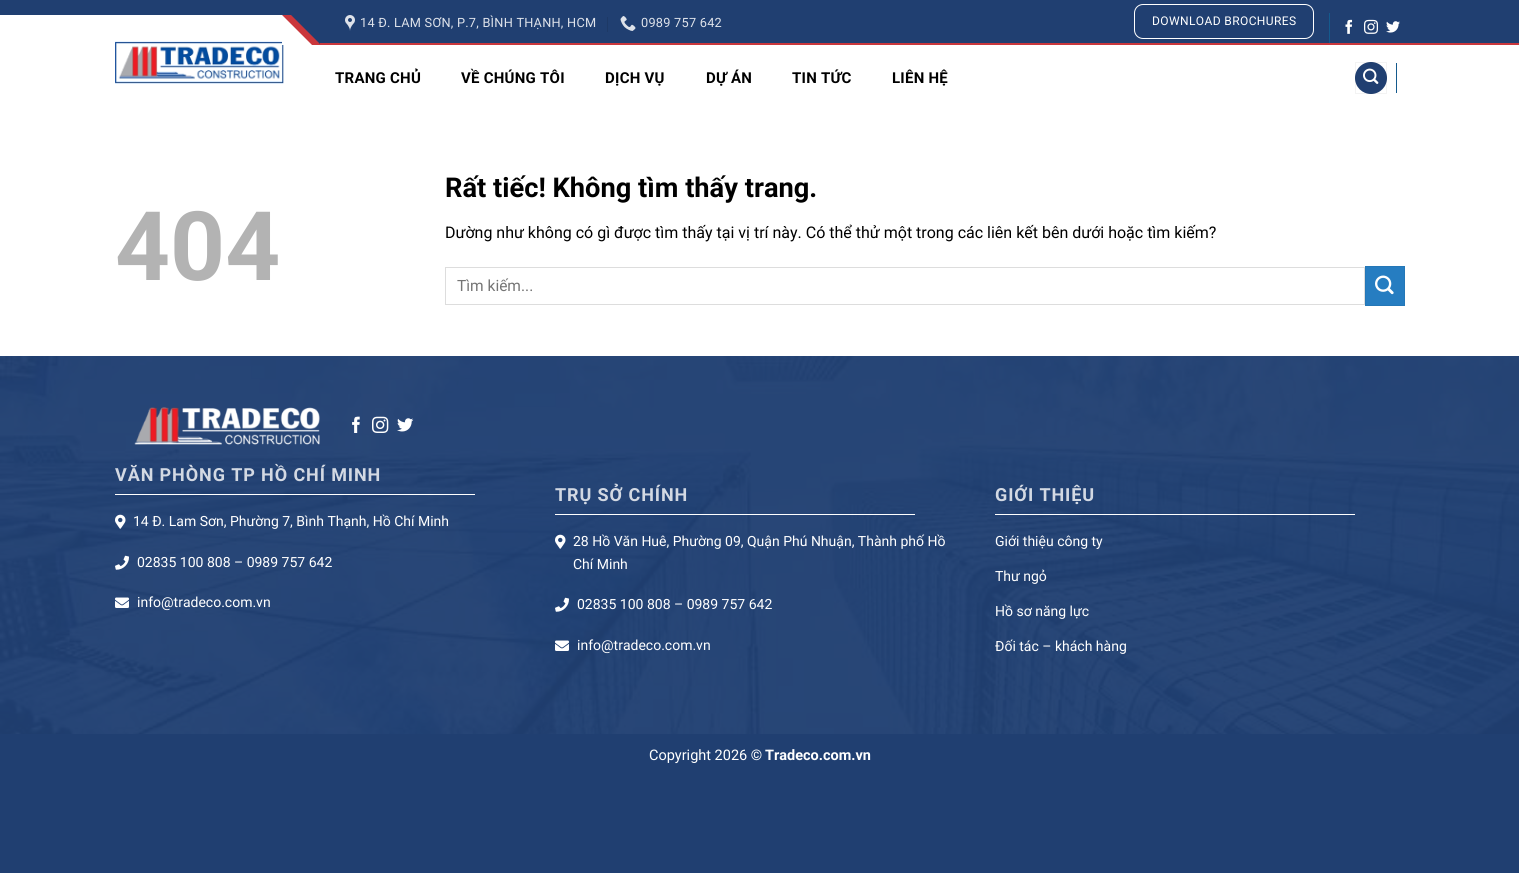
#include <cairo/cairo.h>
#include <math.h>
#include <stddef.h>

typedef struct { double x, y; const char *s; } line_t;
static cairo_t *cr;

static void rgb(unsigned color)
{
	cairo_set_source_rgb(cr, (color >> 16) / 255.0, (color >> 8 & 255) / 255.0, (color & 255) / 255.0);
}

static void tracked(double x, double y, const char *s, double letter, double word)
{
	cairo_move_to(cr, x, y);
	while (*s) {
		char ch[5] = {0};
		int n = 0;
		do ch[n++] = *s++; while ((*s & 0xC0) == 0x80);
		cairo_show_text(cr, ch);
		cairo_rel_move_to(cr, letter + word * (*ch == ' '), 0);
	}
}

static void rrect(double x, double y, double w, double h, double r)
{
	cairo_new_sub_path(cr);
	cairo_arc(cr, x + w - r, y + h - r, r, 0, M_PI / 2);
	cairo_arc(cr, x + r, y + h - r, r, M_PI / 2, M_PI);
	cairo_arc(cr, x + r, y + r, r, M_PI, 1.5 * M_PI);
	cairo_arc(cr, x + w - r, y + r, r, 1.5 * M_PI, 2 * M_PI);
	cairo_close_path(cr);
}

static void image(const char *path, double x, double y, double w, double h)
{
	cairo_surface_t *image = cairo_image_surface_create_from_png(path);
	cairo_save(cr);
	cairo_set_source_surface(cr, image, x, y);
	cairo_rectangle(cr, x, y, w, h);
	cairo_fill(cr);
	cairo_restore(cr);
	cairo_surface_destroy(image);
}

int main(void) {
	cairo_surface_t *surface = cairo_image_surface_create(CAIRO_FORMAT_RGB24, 1519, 873);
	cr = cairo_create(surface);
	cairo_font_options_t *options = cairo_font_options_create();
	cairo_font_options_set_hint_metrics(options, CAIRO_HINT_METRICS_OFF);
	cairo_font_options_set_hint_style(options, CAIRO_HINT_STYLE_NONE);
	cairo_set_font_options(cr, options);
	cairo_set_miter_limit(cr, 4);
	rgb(0x203f71);
	cairo_paint(cr);
	rgb(0xffffff);
	cairo_rectangle(cr, 0, 45, 1519, 311);
	cairo_fill(cr);
	rgb(0xca373c);
	cairo_rectangle(cr, 320, 43, 1199, 2);
	cairo_fill(cr);
	image("img/1.png", 345, 15, 10, 16);
	rgb(0x1d3966);
	cairo_rectangle(cr, 607, 17, 1, 15);
	cairo_fill(cr);
	image("img/2.png", 620, 16, 16, 15);
	rrect(1134.5, 4.5, 179, 34, 8.5);
	rgb(0xffffff);
	cairo_set_line_width(cr, 1);
	cairo_stroke(cr);
	rgb(0x145a8d);
	cairo_rectangle(cr, 1329, 13, 1, 30);
	cairo_fill(cr);
	image("img/3.png", 1345, 19, 8, 15);
	image("img/4.png", 1364, 19, 14, 15);
	image("img/5.png", 1386, 21, 14, 12);
	rgb(0xffffff);
	cairo_rectangle(cr, 0, 15, 285, 30);
	cairo_fill(cr);
	image("img/6.png", 115, 41, 169, 43);
	rgb(0xca373c);
	cairo_rectangle(cr, 282, 15, 38, 30);
	cairo_fill(cr);
	rgb(0x203f71);
	cairo_new_path(cr);
	cairo_move_to(cr, 320, 14);
	cairo_line_to(cr, 320, 44);
	cairo_line_to(cr, 290, 14);
	cairo_close_path(cr);
	cairo_fill(cr);
	rgb(0xffffff);
	cairo_new_path(cr);
	cairo_move_to(cr, 282, 45);
	cairo_line_to(cr, 282, 15);
	cairo_line_to(cr, 312, 45);
	cairo_close_path(cr);
	cairo_fill(cr);
	rgb(0x203f71);
	cairo_arc(cr, 1371, 78, 16, 0, 2 * M_PI);
	cairo_fill(cr);
	cairo_rectangle(cr, 1355.5, 62.5, 31, 31);
	cairo_set_source_rgba(cr, 0, 0, 0, 0.05);
	cairo_stroke(cr);
	image("img/7.png", 1363, 68, 16, 16);
	rgb(0x145a8d);
	cairo_rectangle(cr, 1396, 63, 1, 30);
	cairo_fill(cr);
	cairo_rectangle(cr, 445.5, 267.5, 919, 37);
	rgb(0xdddddd);
	cairo_stroke(cr);
	rgb(0x267dc1);
	cairo_rectangle(cr, 1365.5, 266.5, 39, 39);
	cairo_fill_preserve(cr);
	rgb(0x2477b7);
	cairo_stroke(cr);
	image("img/8.png", 1375, 275, 19, 20);
	image("img/9.png", 0, 356, 1519, 378);
	image("img/10.png", 134, 407, 186, 38);
	image("img/11.png", 352, 416, 8, 17);
	image("img/12.png", 372, 416, 17, 17);
	image("img/13.png", 397, 418, 17, 14);
	rgb(0xffffff);
	cairo_rectangle(cr, 115, 494, 360, 1);
	cairo_fill(cr);
	image("img/14.png", 115, 514, 11, 15);
	image("img/15.png", 115, 555, 14, 15);
	image("img/16.png", 115, 597, 14, 11);
	cairo_rectangle(cr, 555, 514, 360, 1);
	cairo_fill(cr);
	image("img/17.png", 555, 534, 11, 15);
	image("img/18.png", 555, 597, 14, 15);
	image("img/19.png", 555, 640, 14, 11);
	cairo_rectangle(cr, 995, 514, 360, 1);
	cairo_fill(cr);
	cairo_select_font_face(cr, "Roboto", CAIRO_FONT_SLANT_NORMAL, CAIRO_FONT_WEIGHT_NORMAL);
	cairo_set_font_size(cr, 12.75);
	rgb(0xdee2ea);
	tracked(360, 27, "14 Đ. LAM SƠN, P.7, BÌNH THẠNH, HCM", 0.25, 0);
	tracked(641, 27, "0989 757 642", 0.25, 0);
	cairo_set_font_size(cr, 12);
	rgb(0xffffff);
	tracked(1152, 25, "DOWNLOAD BROCHURES", 0.4, 0);
	cairo_select_font_face(cr, "Roboto", CAIRO_FONT_SLANT_NORMAL, CAIRO_FONT_WEIGHT_BOLD);
	cairo_set_font_size(cr, 15);
	rgb(0x000000);
	{
		static const line_t items[] = {
			{335, 83, "TRANG CHỦ"},
			{461, 83, "VỀ CHÚNG TÔI"},
			{605, 83, "DỊCH VỤ"},
			{706, 83, "DỰ ÁN"},
			{792, 83, "TIN TỨC"},
			{892, 83, "LIÊN HỆ"},
		};
		for (size_t i = 0; i < sizeof items / sizeof *items; i++) {
			tracked(items[i].x, items[i].y, items[i].s, 0.25, 0);
		}
	}
	cairo_set_font_size(cr, 96);
	rgb(0xb3b3b3);
	cairo_move_to(cr, 115, 280);
	cairo_show_text(cr, "404");
	cairo_set_font_size(cr, 27.25);
	rgb(0x000000);
	cairo_move_to(cr, 445, 197);
	cairo_show_text(cr, "Rất tiếc! Không tìm thấy trang.");
	cairo_select_font_face(cr, "Roboto", CAIRO_FONT_SLANT_NORMAL, CAIRO_FONT_WEIGHT_NORMAL);
	cairo_set_font_size(cr, 16);
	cairo_move_to(cr, 445, 238);
	cairo_show_text(cr, "Dường như không có gì được tìm thấy tại vị trí này. Có thể thử một trong các liên kết bên dưới hoặc tìm kiếm?");
	cairo_set_font_size(cr, 15.5);
	rgb(0x757575);
	cairo_move_to(cr, 457, 291);
	cairo_show_text(cr, "Tìm kiếm...");
	cairo_select_font_face(cr, "Roboto", CAIRO_FONT_SLANT_NORMAL, CAIRO_FONT_WEIGHT_BOLD);
	cairo_set_font_size(cr, 18);
	rgb(0xd3d9e3);
	tracked(115, 481, "VĂN PHÒNG TP HỒ CHÍ MINH", 0.9, 0);
	cairo_select_font_face(cr, "Roboto", CAIRO_FONT_SLANT_NORMAL, CAIRO_FONT_WEIGHT_NORMAL);
	cairo_set_font_size(cr, 14);
	rgb(0xffffff);
	{
		static const line_t items[] = {
			{133, 526, "14 Đ. Lam Sơn, Phường 7, Bình Thạnh, Hồ Chí Minh"},
			{137, 567, "02835 100 808 – 0989 757 642"},
			{137, 607, "info@tradeco.com.vn"},
		};
		for (size_t i = 0; i < sizeof items / sizeof *items; i++) {
			cairo_move_to(cr, items[i].x, items[i].y);
			cairo_show_text(cr, items[i].s);
		}
	}
	cairo_select_font_face(cr, "Roboto", CAIRO_FONT_SLANT_NORMAL, CAIRO_FONT_WEIGHT_BOLD);
	cairo_set_font_size(cr, 18);
	rgb(0xd3d9e3);
	tracked(555, 501, "TRỤ SỞ CHÍNH", 0.9, 0);
	cairo_select_font_face(cr, "Roboto", CAIRO_FONT_SLANT_NORMAL, CAIRO_FONT_WEIGHT_NORMAL);
	cairo_set_font_size(cr, 14);
	rgb(0xffffff);
	{
		static const line_t items[] = {
			{573, 546, "28 Hồ Văn Huê, Phường 09, Quận Phú Nhuận, Thành phố Hồ"},
			{573, 569, "Chí Minh"},
			{577, 609, "02835 100 808 – 0989 757 642"},
			{577, 650, "info@tradeco.com.vn"},
		};
		for (size_t i = 0; i < sizeof items / sizeof *items; i++) {
			cairo_move_to(cr, items[i].x, items[i].y);
			cairo_show_text(cr, items[i].s);
		}
	}
	cairo_select_font_face(cr, "Roboto", CAIRO_FONT_SLANT_NORMAL, CAIRO_FONT_WEIGHT_BOLD);
	cairo_set_font_size(cr, 18);
	rgb(0xd3d9e3);
	tracked(995, 501, "GIỚI THIỆU", 0.9, 0);
	cairo_select_font_face(cr, "Roboto", CAIRO_FONT_SLANT_NORMAL, CAIRO_FONT_WEIGHT_NORMAL);
	cairo_set_font_size(cr, 14);
	rgb(0xffffff);
	{
		static const line_t items[] = {
			{995, 546, "Giới thiệu công ty"},
			{995, 581, "Thư ngỏ"},
			{995, 616, "Hồ sơ năng lực"},
			{995, 651, "Đối tác – khách hàng"},
		};
		for (size_t i = 0; i < sizeof items / sizeof *items; i++) {
			cairo_move_to(cr, items[i].x, items[i].y);
			cairo_show_text(cr, items[i].s);
		}
	}
	cairo_set_font_size(cr, 14.5);
	cairo_move_to(cr, 649, 760);
	cairo_show_text(cr, "Copyright 2026 ©");
	cairo_select_font_face(cr, "Roboto", CAIRO_FONT_SLANT_NORMAL, CAIRO_FONT_WEIGHT_BOLD);
	cairo_move_to(cr, 765, 760);
	cairo_show_text(cr, "Tradeco.com.vn");
	cairo_surface_write_to_png(surface, "page.png");
	cairo_font_options_destroy(options);
	cairo_destroy(cr);
	cairo_surface_destroy(surface);
	return 0;
}
